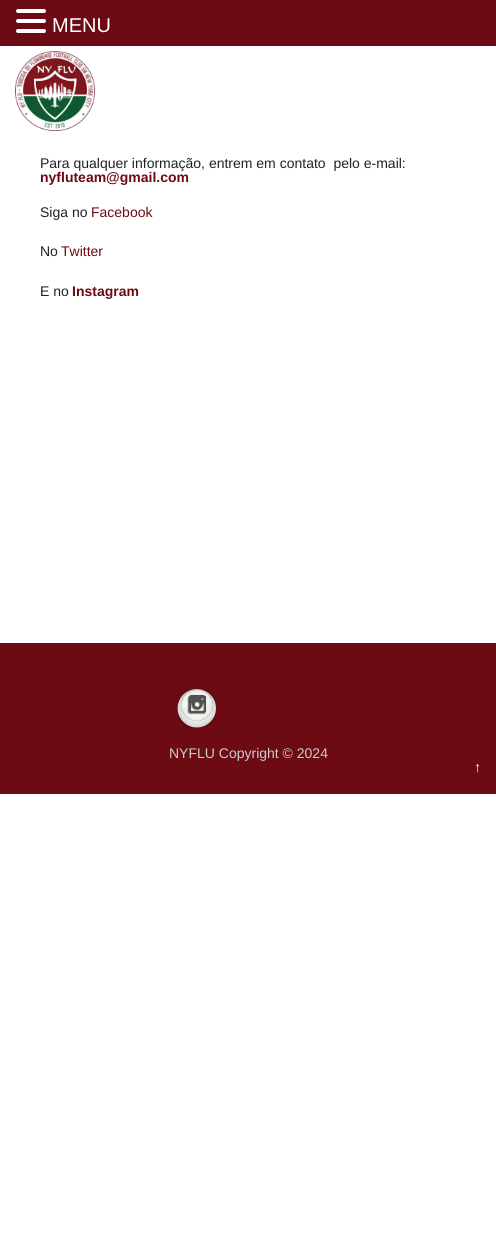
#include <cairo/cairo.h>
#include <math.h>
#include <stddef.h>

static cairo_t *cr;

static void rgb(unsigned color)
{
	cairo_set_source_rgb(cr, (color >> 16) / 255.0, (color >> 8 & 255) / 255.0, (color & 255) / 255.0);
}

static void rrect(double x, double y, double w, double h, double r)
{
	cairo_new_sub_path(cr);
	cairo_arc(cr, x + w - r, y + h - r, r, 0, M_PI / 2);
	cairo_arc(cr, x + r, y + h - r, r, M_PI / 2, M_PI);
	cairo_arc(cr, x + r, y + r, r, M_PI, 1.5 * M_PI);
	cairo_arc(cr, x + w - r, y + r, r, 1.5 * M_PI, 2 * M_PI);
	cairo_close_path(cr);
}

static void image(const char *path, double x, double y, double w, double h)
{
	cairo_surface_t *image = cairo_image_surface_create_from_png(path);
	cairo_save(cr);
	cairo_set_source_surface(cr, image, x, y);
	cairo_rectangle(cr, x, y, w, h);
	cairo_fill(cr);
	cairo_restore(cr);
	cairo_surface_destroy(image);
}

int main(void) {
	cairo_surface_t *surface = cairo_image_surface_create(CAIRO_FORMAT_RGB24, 496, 1248);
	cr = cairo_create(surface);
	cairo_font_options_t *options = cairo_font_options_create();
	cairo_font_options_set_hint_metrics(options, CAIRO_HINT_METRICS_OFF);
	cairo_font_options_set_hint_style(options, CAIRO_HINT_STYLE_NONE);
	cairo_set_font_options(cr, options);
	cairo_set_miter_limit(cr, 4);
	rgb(0xffffff);
	cairo_paint(cr);
	rgb(0x6c0b14);
	cairo_rectangle(cr, 0, 0, 496, 46);
	cairo_fill(cr);
	rgb(0xffffff);
	rrect(16, 9, 30, 4, 2);
	cairo_fill(cr);
	rrect(16, 19, 30, 4, 2);
	cairo_fill(cr);
	rrect(16, 29, 30, 4, 2);
	cairo_fill(cr);
	image("img/1.png", 15, 51, 80, 80);
	rgb(0x6c0b14);
	cairo_rectangle(cr, 0, 643, 496, 151);
	cairo_fill(cr);
	image("img/2.png", 177, 689, 39, 39);
	cairo_select_font_face(cr, "Liberation Sans", CAIRO_FONT_SLANT_NORMAL, CAIRO_FONT_WEIGHT_NORMAL);
	cairo_set_font_size(cr, 20);
	rgb(0xffffff);
	cairo_move_to(cr, 52, 32);
	cairo_show_text(cr, "MENU");
	cairo_set_font_size(cr, 14);
	rgb(0x222222);
	cairo_move_to(cr, 40, 168);
	cairo_show_text(cr, "Para qualquer informação, entrem em contato  pelo e-mail:");
	cairo_select_font_face(cr, "Liberation Sans", CAIRO_FONT_SLANT_NORMAL, CAIRO_FONT_WEIGHT_BOLD);
	rgb(0x6c0b14);
	cairo_move_to(cr, 40, 182);
	cairo_show_text(cr, "nyfluteam@gmail.com");
	cairo_select_font_face(cr, "Liberation Sans", CAIRO_FONT_SLANT_NORMAL, CAIRO_FONT_WEIGHT_NORMAL);
	rgb(0x222222);
	cairo_move_to(cr, 40, 217);
	cairo_show_text(cr, "Siga no");
	rgb(0x6c0b14);
	cairo_move_to(cr, 91, 217);
	cairo_show_text(cr, "Facebook");
	rgb(0x222222);
	cairo_move_to(cr, 40, 256);
	cairo_show_text(cr, "No");
	rgb(0x6c0b14);
	cairo_move_to(cr, 61, 256);
	cairo_show_text(cr, "Twitter");
	rgb(0x222222);
	cairo_move_to(cr, 40, 296);
	cairo_show_text(cr, "E no");
	cairo_select_font_face(cr, "Liberation Sans", CAIRO_FONT_SLANT_NORMAL, CAIRO_FONT_WEIGHT_BOLD);
	rgb(0x6c0b14);
	cairo_move_to(cr, 72, 296);
	cairo_show_text(cr, "Instagram");
	cairo_select_font_face(cr, "Liberation Sans", CAIRO_FONT_SLANT_NORMAL, CAIRO_FONT_WEIGHT_NORMAL);
	rgb(0xcccccc);
	cairo_move_to(cr, 169, 758);
	cairo_show_text(cr, "NYFLU Copyright © 2024");
	rgb(0xffffff);
	cairo_move_to(cr, 474, 772);
	cairo_show_text(cr, "↑");
	cairo_surface_write_to_png(surface, "page.png");
	cairo_font_options_destroy(options);
	cairo_destroy(cr);
	cairo_surface_destroy(surface);
	return 0;
}
